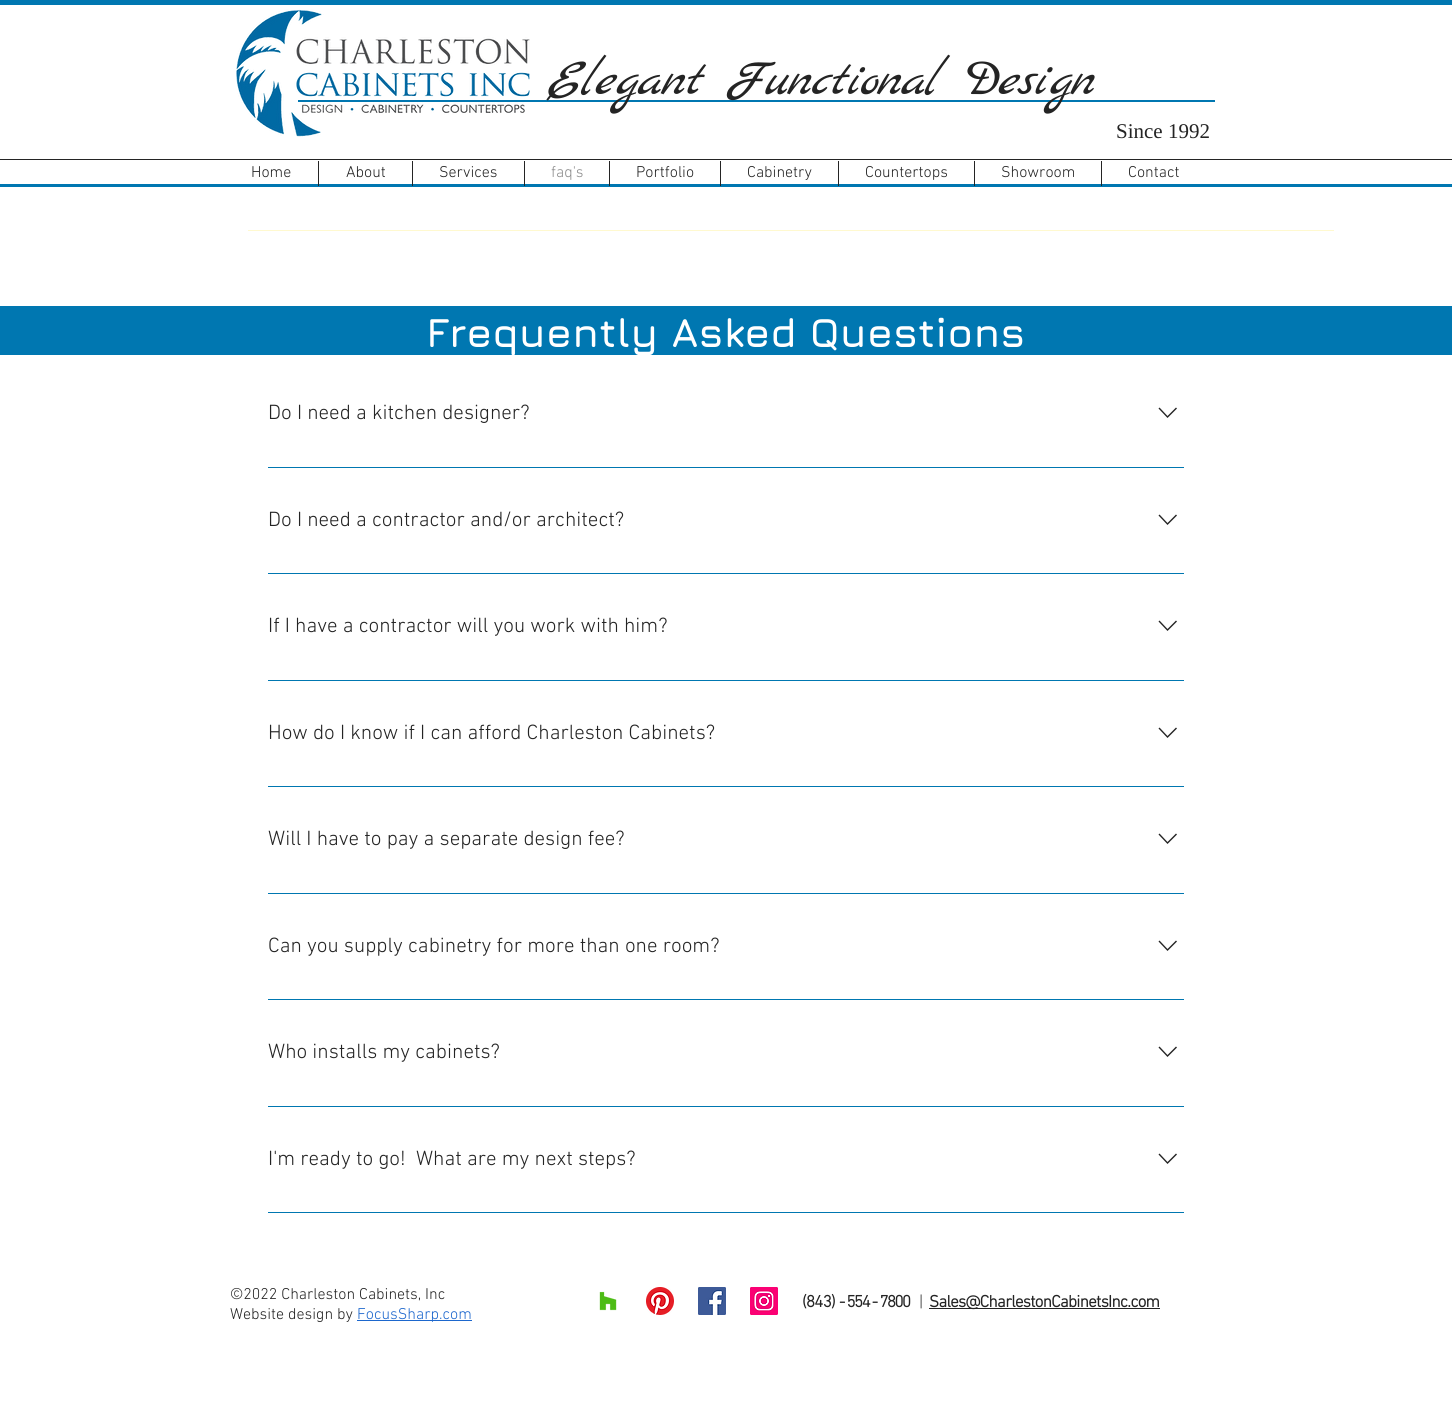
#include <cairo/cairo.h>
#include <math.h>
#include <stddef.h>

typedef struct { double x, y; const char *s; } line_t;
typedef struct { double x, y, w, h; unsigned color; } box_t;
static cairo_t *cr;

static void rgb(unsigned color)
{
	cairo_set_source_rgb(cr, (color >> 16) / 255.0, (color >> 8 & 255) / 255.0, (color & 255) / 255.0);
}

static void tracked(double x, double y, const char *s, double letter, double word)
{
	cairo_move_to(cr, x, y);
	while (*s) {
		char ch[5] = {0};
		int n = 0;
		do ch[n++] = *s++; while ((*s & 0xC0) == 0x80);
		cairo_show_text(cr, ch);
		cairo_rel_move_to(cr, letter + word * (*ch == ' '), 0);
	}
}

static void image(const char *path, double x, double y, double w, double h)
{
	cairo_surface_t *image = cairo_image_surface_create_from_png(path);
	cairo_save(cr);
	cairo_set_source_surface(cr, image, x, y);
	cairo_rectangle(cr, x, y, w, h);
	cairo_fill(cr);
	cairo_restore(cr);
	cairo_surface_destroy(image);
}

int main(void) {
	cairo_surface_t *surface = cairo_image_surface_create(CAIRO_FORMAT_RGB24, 1452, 1428);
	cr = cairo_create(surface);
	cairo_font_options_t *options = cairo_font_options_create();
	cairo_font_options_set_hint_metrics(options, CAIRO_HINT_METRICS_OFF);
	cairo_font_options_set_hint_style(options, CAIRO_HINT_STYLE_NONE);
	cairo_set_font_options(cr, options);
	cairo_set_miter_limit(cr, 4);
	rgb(0xffffff);
	cairo_paint(cr);
	{
		static const box_t items[] = {
			{0, 0, 1452, 5, 0x0077b1},
			{0, 184, 1452, 3, 0x0077b1},
			{298, 100, 917, 2, 0x0077b1},
		};
		for (size_t i = 0; i < sizeof items / sizeof *items; i++) {
			rgb(items[i].color);
			cairo_rectangle(cr, items[i].x, items[i].y, items[i].w, items[i].h);
			cairo_fill(cr);
		}
	}
	image("img/1.png", 236, 9, 294, 128);
	{
		static const box_t items[] = {
			{0, 159, 1452, 1, 0x242424},
			{318, 161, 1, 25, 0x242424},
			{412, 161, 1, 25, 0x242424},
			{524, 161, 1, 25, 0x242424},
			{609, 161, 1, 25, 0x242424},
			{720, 161, 1, 25, 0x242424},
			{838, 161, 1, 25, 0x242424},
			{974, 161, 1, 25, 0x242424},
			{1101, 161, 1, 25, 0x242424},
			{248, 230, 1086, 1, 0xfff9cf},
			{0, 306, 1452, 49, 0x0077b1},
		};
		for (size_t i = 0; i < sizeof items / sizeof *items; i++) {
			rgb(items[i].color);
			cairo_rectangle(cr, items[i].x, items[i].y, items[i].w, items[i].h);
			cairo_fill(cr);
		}
	}
	rgb(0x242424);
	cairo_set_fill_rule(cr, CAIRO_FILL_RULE_EVEN_ODD);
	cairo_new_path(cr);
	cairo_move_to(cr, 1176, 407.5);
	cairo_line_to(cr, 1177, 408.5);
	cairo_line_to(cr, 1167.5, 418);
	cairo_line_to(cr, 1158.5, 408.5);
	cairo_line_to(cr, 1159.5, 407.5);
	cairo_line_to(cr, 1167.5, 416);
	cairo_close_path(cr);
	cairo_fill(cr);
	rgb(0x0077b1);
	cairo_rectangle(cr, 268, 467, 916, 1);
	cairo_fill(cr);
	rgb(0x242424);
	cairo_new_path(cr);
	cairo_move_to(cr, 1176, 514.5);
	cairo_line_to(cr, 1177, 515.5);
	cairo_line_to(cr, 1167.5, 525);
	cairo_line_to(cr, 1158.5, 515.5);
	cairo_line_to(cr, 1159.5, 514.5);
	cairo_line_to(cr, 1167.5, 523);
	cairo_close_path(cr);
	cairo_fill(cr);
	rgb(0x0077b1);
	cairo_rectangle(cr, 268, 573, 916, 1);
	cairo_fill(cr);
	rgb(0x242424);
	cairo_new_path(cr);
	cairo_move_to(cr, 1176, 620.5);
	cairo_line_to(cr, 1177, 621.5);
	cairo_line_to(cr, 1167.5, 631);
	cairo_line_to(cr, 1158.5, 621.5);
	cairo_line_to(cr, 1159.5, 620.5);
	cairo_line_to(cr, 1167.5, 629);
	cairo_close_path(cr);
	cairo_fill(cr);
	rgb(0x0077b1);
	cairo_rectangle(cr, 268, 680, 916, 1);
	cairo_fill(cr);
	rgb(0x242424);
	cairo_new_path(cr);
	cairo_move_to(cr, 1176, 727.5);
	cairo_line_to(cr, 1177, 728.5);
	cairo_line_to(cr, 1167.5, 738);
	cairo_line_to(cr, 1158.5, 728.5);
	cairo_line_to(cr, 1159.5, 727.5);
	cairo_line_to(cr, 1167.5, 736);
	cairo_close_path(cr);
	cairo_fill(cr);
	rgb(0x0077b1);
	cairo_rectangle(cr, 268, 786, 916, 1);
	cairo_fill(cr);
	rgb(0x242424);
	cairo_new_path(cr);
	cairo_move_to(cr, 1176, 833.5);
	cairo_line_to(cr, 1177, 834.5);
	cairo_line_to(cr, 1167.5, 844);
	cairo_line_to(cr, 1158.5, 834.5);
	cairo_line_to(cr, 1159.5, 833.5);
	cairo_line_to(cr, 1167.5, 842);
	cairo_close_path(cr);
	cairo_fill(cr);
	rgb(0x0077b1);
	cairo_rectangle(cr, 268, 893, 916, 1);
	cairo_fill(cr);
	rgb(0x242424);
	cairo_new_path(cr);
	cairo_move_to(cr, 1176, 940.5);
	cairo_line_to(cr, 1177, 941.5);
	cairo_line_to(cr, 1167.5, 951);
	cairo_line_to(cr, 1158.5, 941.5);
	cairo_line_to(cr, 1159.5, 940.5);
	cairo_line_to(cr, 1167.5, 949);
	cairo_close_path(cr);
	cairo_fill(cr);
	rgb(0x0077b1);
	cairo_rectangle(cr, 268, 999, 916, 1);
	cairo_fill(cr);
	rgb(0x242424);
	cairo_new_path(cr);
	cairo_move_to(cr, 1176, 1046.5);
	cairo_line_to(cr, 1177, 1047.5);
	cairo_line_to(cr, 1167.5, 1057);
	cairo_line_to(cr, 1158.5, 1047.5);
	cairo_line_to(cr, 1159.5, 1046.5);
	cairo_line_to(cr, 1167.5, 1055);
	cairo_close_path(cr);
	cairo_fill(cr);
	rgb(0x0077b1);
	cairo_rectangle(cr, 268, 1106, 916, 1);
	cairo_fill(cr);
	rgb(0x242424);
	cairo_new_path(cr);
	cairo_move_to(cr, 1176, 1153.5);
	cairo_line_to(cr, 1177, 1154.5);
	cairo_line_to(cr, 1167.5, 1164);
	cairo_line_to(cr, 1158.5, 1154.5);
	cairo_line_to(cr, 1159.5, 1153.5);
	cairo_line_to(cr, 1167.5, 1162);
	cairo_close_path(cr);
	cairo_fill(cr);
	rgb(0x0077b1);
	cairo_rectangle(cr, 268, 1212, 916, 1);
	cairo_fill(cr);
	rgb(0x1d67cd);
	cairo_rectangle(cr, 357, 1320, 115, 1);
	cairo_fill(cr);
	image("img/2.png", 599, 1291, 18, 20);
	image("img/3.png", 646, 1287, 28, 28);
	image("img/4.png", 698, 1287, 28, 28);
	image("img/5.png", 750, 1287, 28, 28);
	rgb(0x242424);
	cairo_rectangle(cr, 929, 1308, 231, 1);
	cairo_fill(cr);
	cairo_select_font_face(cr, "Marck Script", CAIRO_FONT_SLANT_ITALIC, CAIRO_FONT_WEIGHT_NORMAL);
	cairo_set_font_size(cr, 51);
	cairo_move_to(cr, 546, 94);
	cairo_show_text(cr, "Elegant Functional Design");
	cairo_select_font_face(cr, "Liberation Serif", CAIRO_FONT_SLANT_NORMAL, CAIRO_FONT_WEIGHT_NORMAL);
	cairo_set_font_size(cr, 21);
	cairo_move_to(cr, 1116, 138);
	cairo_show_text(cr, "Since 1992");
	cairo_select_font_face(cr, "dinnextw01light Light", CAIRO_FONT_SLANT_NORMAL, CAIRO_FONT_WEIGHT_NORMAL);
	cairo_set_font_size(cr, 16);
	{
		static const line_t items[] = {
			{251, 177, "Home"},
			{346, 177, "About"},
			{439, 177, "Services"},
		};
		for (size_t i = 0; i < sizeof items / sizeof *items; i++) {
			cairo_move_to(cr, items[i].x, items[i].y);
			cairo_show_text(cr, items[i].s);
		}
	}
	rgb(0x8b8b8b);
	cairo_move_to(cr, 551, 177);
	cairo_show_text(cr, "faq's");
	rgb(0x242424);
	{
		static const line_t items[] = {
			{636, 177, "Portfolio"},
			{747, 177, "Cabinetry"},
			{865, 177, "Countertops"},
			{1001, 177, "Showroom"},
			{1128, 177, "Contact"},
		};
		for (size_t i = 0; i < sizeof items / sizeof *items; i++) {
			cairo_move_to(cr, items[i].x, items[i].y);
			cairo_show_text(cr, items[i].s);
		}
	}
	cairo_select_font_face(cr, "Jura", CAIRO_FONT_SLANT_NORMAL, CAIRO_FONT_WEIGHT_BOLD);
	cairo_set_font_size(cr, 41);
	rgb(0xffffff);
	cairo_move_to(cr, 426, 347);
	cairo_show_text(cr, "Frequently Asked Questions");
	cairo_select_font_face(cr, "dinnextw01light Light", CAIRO_FONT_SLANT_NORMAL, CAIRO_FONT_WEIGHT_NORMAL);
	cairo_set_font_size(cr, 21);
	rgb(0x242424);
	{
		static const line_t items[] = {
			{268, 419, "Do I need a kitchen designer?"},
			{268, 526, "Do I need a contractor and/or architect?"},
			{268, 632, "If I have a contractor will you work with him?"},
			{268, 739, "How do I know if I can afford Charleston Cabinets?"},
			{268, 845, "Will I have to pay a separate design fee?"},
			{268, 952, "Can you supply cabinetry for more than one room?"},
			{268, 1058, "Who installs my cabinets?"},
			{268, 1165, "I'm ready to go!  What are my next steps?"},
		};
		for (size_t i = 0; i < sizeof items / sizeof *items; i++) {
			cairo_move_to(cr, items[i].x, items[i].y);
			cairo_show_text(cr, items[i].s);
		}
	}
	cairo_set_font_size(cr, 16);
	cairo_move_to(cr, 230, 1299);
	cairo_show_text(cr, "©2022 Charleston Cabinets, Inc");
	cairo_move_to(cr, 230, 1319);
	cairo_show_text(cr, "Website design by");
	rgb(0x1d67cd);
	cairo_move_to(cr, 357, 1319);
	cairo_show_text(cr, "FocusSharp.com");
	cairo_select_font_face(cr, "dinnextw01light", CAIRO_FONT_SLANT_NORMAL, CAIRO_FONT_WEIGHT_BOLD);
	cairo_set_font_size(cr, 17);
	rgb(0x242424);
	tracked(802, 1307, "(843)", -0.7, 0);
	tracked(839, 1307, "- 554 - 7800", -1.5, 0);
	cairo_select_font_face(cr, "dinnextw01light Light", CAIRO_FONT_SLANT_NORMAL, CAIRO_FONT_WEIGHT_NORMAL);
	tracked(919, 1307, "|", -0.7, 0);
	cairo_select_font_face(cr, "dinnextw01light", CAIRO_FONT_SLANT_NORMAL, CAIRO_FONT_WEIGHT_BOLD);
	tracked(929, 1307, "Sales@CharlestonCabinetsInc.com", -0.7, 0);
	cairo_surface_write_to_png(surface, "page.png");
	cairo_font_options_destroy(options);
	cairo_destroy(cr);
	cairo_surface_destroy(surface);
	return 0;
}
